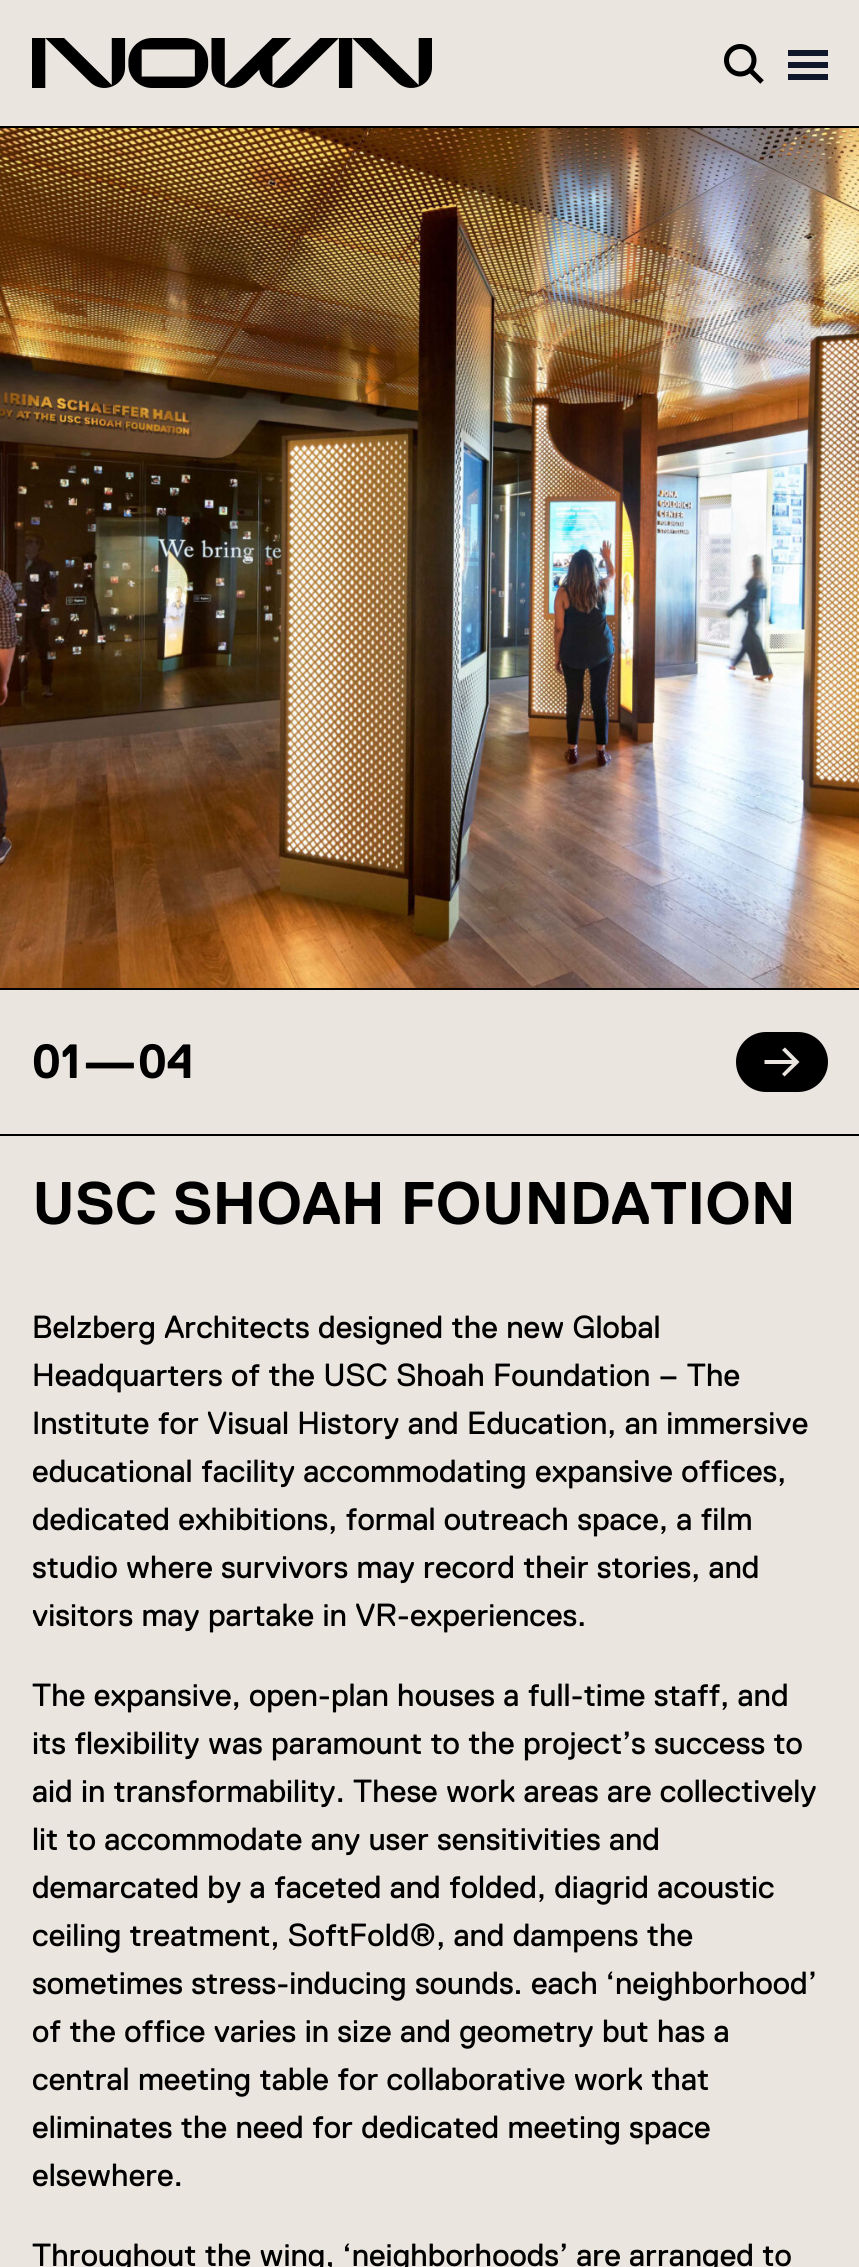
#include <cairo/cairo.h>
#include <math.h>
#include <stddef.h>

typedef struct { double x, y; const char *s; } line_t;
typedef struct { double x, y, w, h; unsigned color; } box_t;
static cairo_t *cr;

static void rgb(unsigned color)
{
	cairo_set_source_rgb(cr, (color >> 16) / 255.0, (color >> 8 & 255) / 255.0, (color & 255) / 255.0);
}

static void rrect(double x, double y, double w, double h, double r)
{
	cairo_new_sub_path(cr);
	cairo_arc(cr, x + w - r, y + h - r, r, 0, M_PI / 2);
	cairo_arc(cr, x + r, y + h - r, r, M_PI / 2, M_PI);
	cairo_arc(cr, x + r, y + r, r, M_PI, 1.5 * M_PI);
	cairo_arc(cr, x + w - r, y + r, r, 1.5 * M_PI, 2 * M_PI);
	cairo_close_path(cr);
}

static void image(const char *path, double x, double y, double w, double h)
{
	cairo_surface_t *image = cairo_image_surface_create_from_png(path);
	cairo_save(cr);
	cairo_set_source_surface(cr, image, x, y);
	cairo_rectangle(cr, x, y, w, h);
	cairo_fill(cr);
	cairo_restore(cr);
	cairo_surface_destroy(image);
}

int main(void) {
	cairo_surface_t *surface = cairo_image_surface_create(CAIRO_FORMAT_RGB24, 859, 2267);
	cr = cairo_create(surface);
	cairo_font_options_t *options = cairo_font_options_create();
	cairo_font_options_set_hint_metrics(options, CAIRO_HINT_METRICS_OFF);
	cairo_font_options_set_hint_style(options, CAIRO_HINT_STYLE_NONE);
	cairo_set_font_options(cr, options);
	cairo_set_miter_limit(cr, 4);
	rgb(0xeae5df);
	cairo_paint(cr);
	rgb(0x000000);
	cairo_rectangle(cr, 0, 126, 859, 2);
	cairo_fill(cr);
	image("img/1.png", 32, 38, 400, 50);
	image("img/2.png", 724, 44, 40, 40);
	{
		static const box_t items[] = {
			{788, 50, 40, 6, 0x0f172a},
			{788, 62, 40, 6, 0x0f172a},
			{788, 74, 40, 6, 0x0f172a},
		};
		for (size_t i = 0; i < sizeof items / sizeof *items; i++) {
			rgb(items[i].color);
			cairo_rectangle(cr, items[i].x, items[i].y, items[i].w, items[i].h);
			cairo_fill(cr);
		}
	}
	image("img/3.png", 0, 128, 859, 860);
	rgb(0x000000);
	cairo_rectangle(cr, 0, 988, 859, 2);
	cairo_fill(cr);
	rrect(737, 1033, 90, 58, 29);
	cairo_fill_preserve(cr);
	cairo_stroke(cr);
	rgb(0xeae5df);
	cairo_new_path(cr);
	cairo_move_to(cr, 798, 1063.5);
	cairo_line_to(cr, 799.5, 1062);
	cairo_line_to(cr, 785, 1047.5);
	cairo_line_to(cr, 782, 1050);
	cairo_line_to(cr, 792, 1060);
	cairo_line_to(cr, 764.5, 1060);
	cairo_line_to(cr, 764.5, 1064);
	cairo_line_to(cr, 792, 1064);
	cairo_line_to(cr, 782, 1074);
	cairo_line_to(cr, 784.5, 1076.5);
	cairo_close_path(cr);
	cairo_fill(cr);
	rgb(0x000000);
	cairo_rectangle(cr, 0, 1134, 859, 2);
	cairo_fill(cr);
	cairo_select_font_face(cr, "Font", CAIRO_FONT_SLANT_NORMAL, CAIRO_FONT_WEIGHT_BOLD);
	cairo_set_font_size(cr, 48);
	{
		static const line_t items[] = {
			{32, 1078, "01"},
			{83, 1078, "—"},
			{138, 1078, "04"},
		};
		for (size_t i = 0; i < sizeof items / sizeof *items; i++) {
			cairo_move_to(cr, items[i].x, items[i].y);
			cairo_show_text(cr, items[i].s);
		}
	}
	cairo_set_font_size(cr, 60);
	cairo_move_to(cr, 32, 1224);
	cairo_show_text(cr, "USC SHOAH FOUNDATION");
	cairo_select_font_face(cr, "Font", CAIRO_FONT_SLANT_NORMAL, CAIRO_FONT_WEIGHT_NORMAL);
	cairo_set_font_size(cr, 32);
	{
		static const line_t items[] = {
			{32, 1338, "Belzberg Architects designed the new Global"},
			{32, 1386, "Headquarters of the USC Shoah Foundation – The"},
			{32, 1434, "Institute for Visual History and Education, an immersive"},
			{32, 1482, "educational facility accommodating expansive offices,"},
			{32, 1530, "dedicated exhibitions, formal outreach space, a film"},
			{32, 1578, "studio where survivors may record their stories, and"},
			{32, 1626, "visitors may partake in VR-experiences."},
			{32, 1706, "The expansive, open-plan houses a full-time staff, and"},
			{32, 1754, "its flexibility was paramount to the project’s success to"},
			{32, 1802, "aid in transformability. These work areas are collectively"},
			{32, 1850, "lit to accommodate any user sensitivities and"},
			{32, 1898, "demarcated by a faceted and folded, diagrid acoustic"},
			{32, 1946, "ceiling treatment, SoftFold®, and dampens the"},
			{32, 1994, "sometimes stress-inducing sounds. each ‘neighborhood’"},
			{32, 2042, "of the office varies in size and geometry but has a"},
			{32, 2090, "central meeting table for collaborative work that"},
			{32, 2138, "eliminates the need for dedicated meeting space"},
			{32, 2186, "elsewhere."},
			{32, 2266, "Throughout the wing, ‘neighborhoods’ are arranged to"},
		};
		for (size_t i = 0; i < sizeof items / sizeof *items; i++) {
			cairo_move_to(cr, items[i].x, items[i].y);
			cairo_show_text(cr, items[i].s);
		}
	}
	cairo_surface_write_to_png(surface, "page.png");
	cairo_font_options_destroy(options);
	cairo_destroy(cr);
	cairo_surface_destroy(surface);
	return 0;
}
